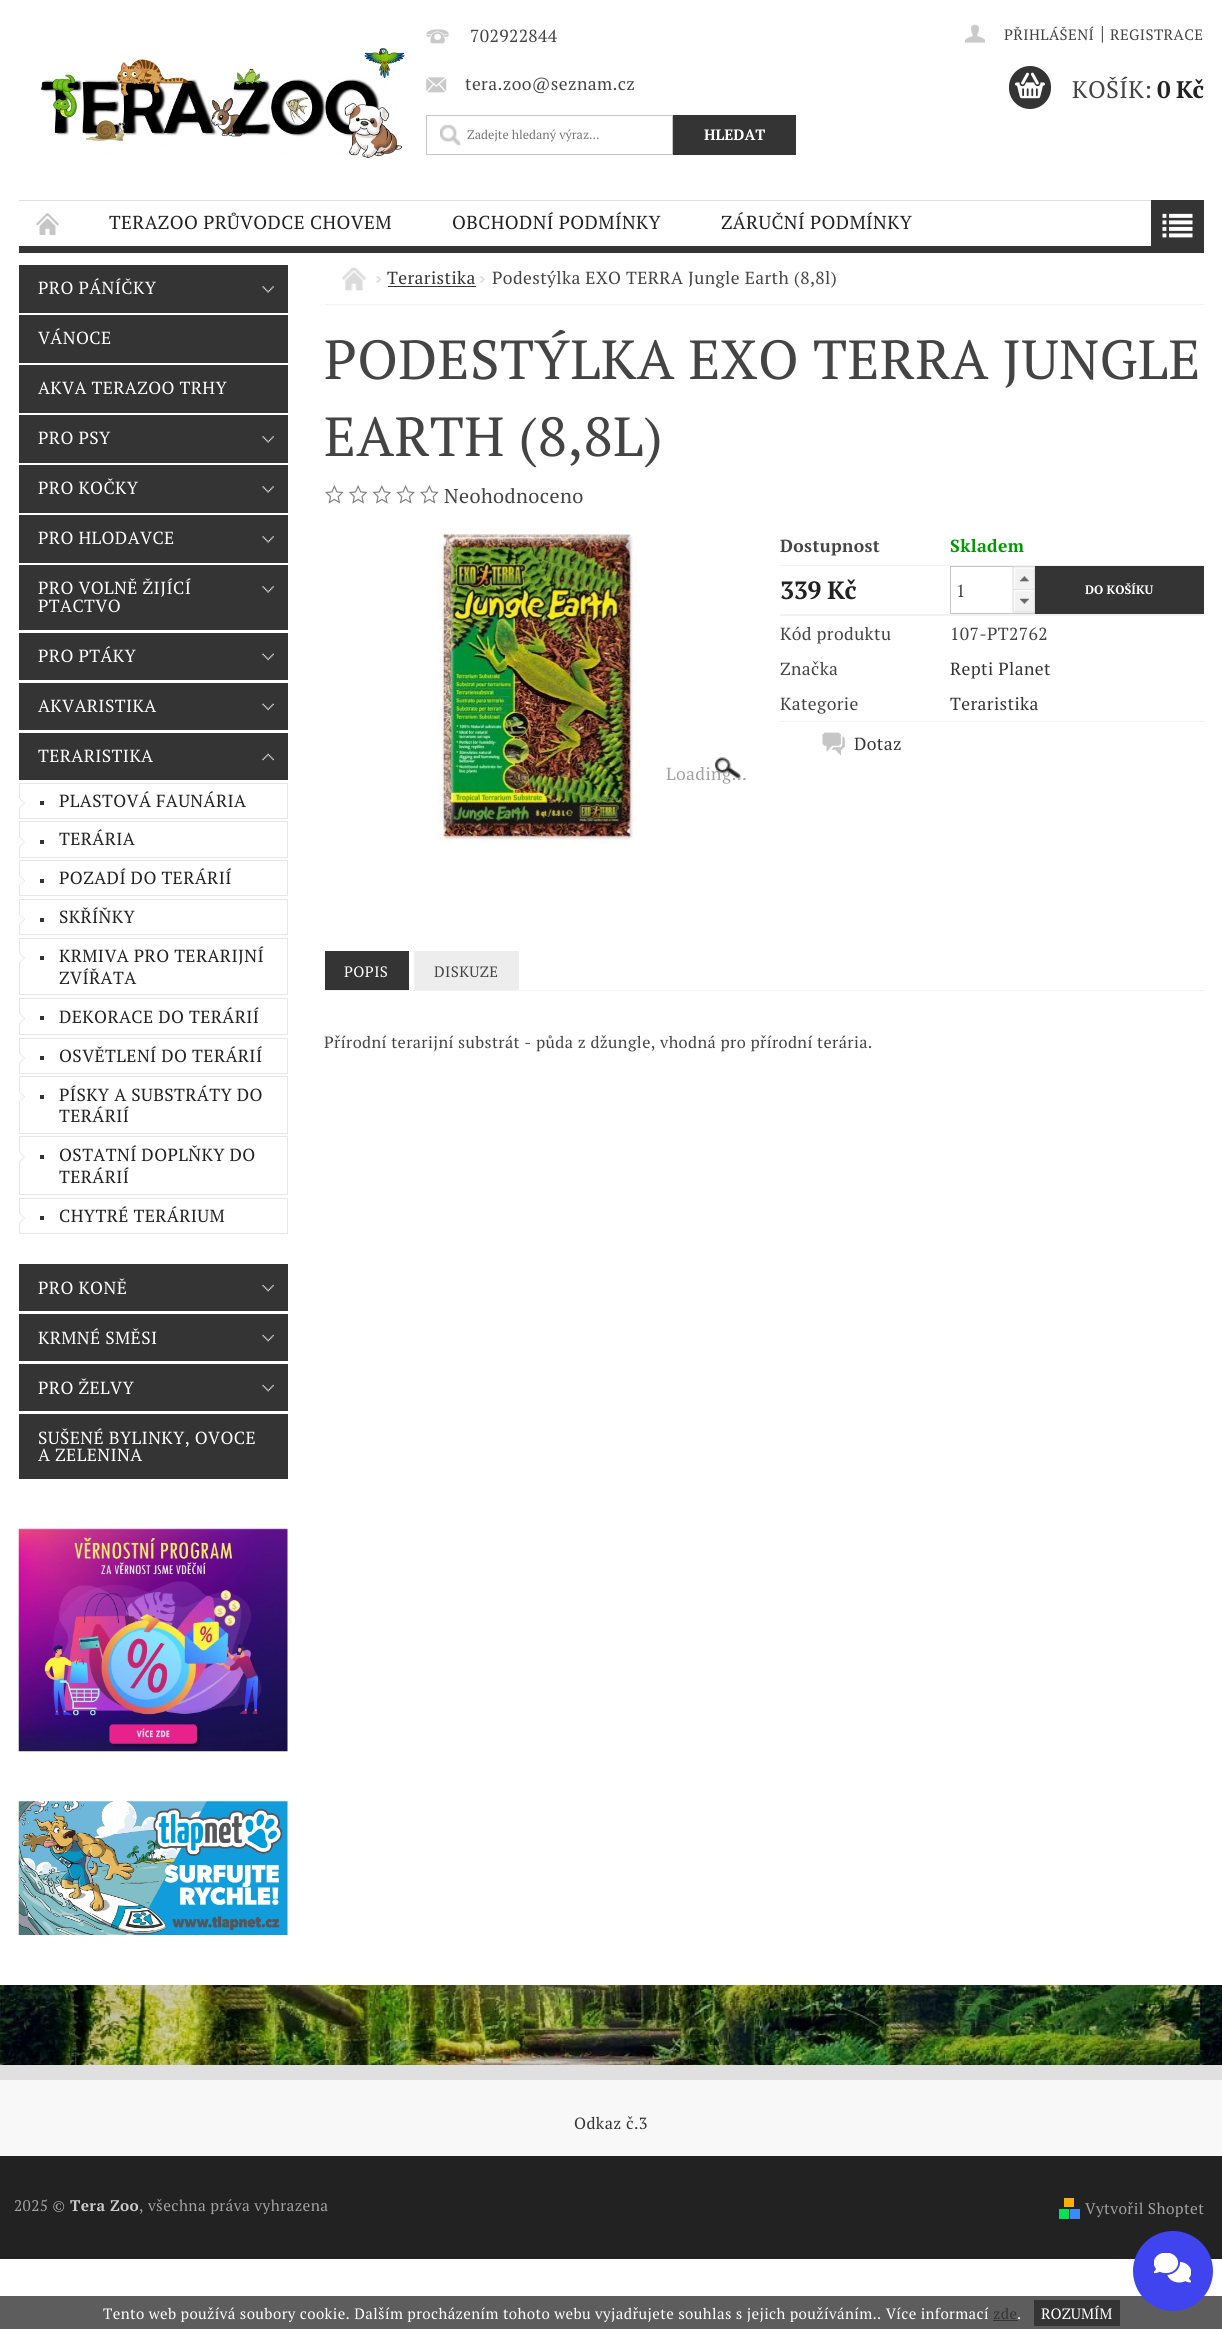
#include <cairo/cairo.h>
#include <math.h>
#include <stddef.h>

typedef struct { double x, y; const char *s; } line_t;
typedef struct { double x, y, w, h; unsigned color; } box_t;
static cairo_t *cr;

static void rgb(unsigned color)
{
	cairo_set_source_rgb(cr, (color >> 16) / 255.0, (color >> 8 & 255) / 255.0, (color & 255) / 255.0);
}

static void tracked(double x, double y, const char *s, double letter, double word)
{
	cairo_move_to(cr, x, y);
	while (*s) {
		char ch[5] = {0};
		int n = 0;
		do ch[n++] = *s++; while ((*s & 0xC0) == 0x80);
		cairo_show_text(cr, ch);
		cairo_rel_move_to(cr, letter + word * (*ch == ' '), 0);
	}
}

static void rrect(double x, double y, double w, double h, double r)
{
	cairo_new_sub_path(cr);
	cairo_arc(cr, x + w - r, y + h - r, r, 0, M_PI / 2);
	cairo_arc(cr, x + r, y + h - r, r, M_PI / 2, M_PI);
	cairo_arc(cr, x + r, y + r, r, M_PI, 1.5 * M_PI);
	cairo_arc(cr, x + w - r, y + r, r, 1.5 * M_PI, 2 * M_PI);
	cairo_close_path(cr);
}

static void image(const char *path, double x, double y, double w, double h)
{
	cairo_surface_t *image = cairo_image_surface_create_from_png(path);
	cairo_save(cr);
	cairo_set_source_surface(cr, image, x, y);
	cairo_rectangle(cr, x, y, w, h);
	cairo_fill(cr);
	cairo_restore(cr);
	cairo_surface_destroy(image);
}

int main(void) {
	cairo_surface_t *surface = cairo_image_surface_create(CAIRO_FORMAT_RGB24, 1222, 2329);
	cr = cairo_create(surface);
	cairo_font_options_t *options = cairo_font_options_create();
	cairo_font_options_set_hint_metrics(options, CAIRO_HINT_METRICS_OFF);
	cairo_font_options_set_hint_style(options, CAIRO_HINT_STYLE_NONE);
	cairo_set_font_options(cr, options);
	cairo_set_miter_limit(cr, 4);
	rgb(0xffffff);
	cairo_paint(cr);
	image("img/1.png", 0, 1985, 1222, 80);
	rgb(0x343434);
	cairo_rectangle(cr, 19, 246, 1132, 7);
	cairo_fill(cr);
	image("img/2.png", 41, 48, 364, 110);
	image("img/3.png", 426, 29, 23, 15);
	image("img/4.png", 426, 77, 21, 16);
	image("img/5.png", 440, 125, 21, 21);
	cairo_rectangle(cr, 426.5, 115.5, 246, 39);
	rgb(0xc6c6c6);
	cairo_set_line_width(cr, 1);
	cairo_stroke(cr);
	rgb(0x343434);
	cairo_rectangle(cr, 673, 115, 123, 40);
	cairo_fill(cr);
	image("img/6.png", 965, 24, 20, 19);
	rrect(1009, 66, 42, 43, 21);
	cairo_fill(cr);
	image("img/7.png", 1015, 72, 30, 27);
	rgb(0xe0e0e0);
	cairo_rectangle(cr, 19, 200, 1132, 1);
	cairo_fill(cr);
	image("img/8.png", 36, 213, 23, 22);
	rgb(0x343434);
	cairo_rectangle(cr, 1151, 200, 53, 53);
	cairo_fill(cr);
	image("img/9.png", 1162, 213, 31, 25);
	cairo_rectangle(cr, 19, 265, 269, 48);
	cairo_fill(cr);
	image("img/10.png", 262, 286, 12, 7);
	{
		static const box_t items[] = {
			{19, 315, 269, 48, 0x343434},
			{19, 365, 269, 48, 0x343434},
			{19, 415, 269, 48, 0x343434},
		};
		for (size_t i = 0; i < sizeof items / sizeof *items; i++) {
			rgb(items[i].color);
			cairo_rectangle(cr, items[i].x, items[i].y, items[i].w, items[i].h);
			cairo_fill(cr);
		}
	}
	image("img/10.png", 262, 436, 12, 7);
	cairo_rectangle(cr, 19, 465, 269, 48);
	cairo_fill(cr);
	image("img/10.png", 262, 486, 12, 7);
	cairo_rectangle(cr, 19, 515, 269, 48);
	cairo_fill(cr);
	image("img/10.png", 262, 536, 12, 7);
	cairo_rectangle(cr, 19, 565, 269, 65);
	cairo_fill(cr);
	image("img/11.png", 262, 586, 12, 7);
	cairo_rectangle(cr, 19, 633, 269, 47);
	cairo_fill(cr);
	image("img/12.png", 262, 653, 12, 8);
	cairo_rectangle(cr, 19, 683, 269, 47);
	cairo_fill(cr);
	image("img/12.png", 262, 703, 12, 8);
	cairo_rectangle(cr, 19, 733, 269, 47);
	cairo_fill(cr);
	image("img/13.png", 262, 753, 12, 8);
	cairo_rectangle(cr, 19.5, 783.5, 268, 35);
	rgb(0xe7e7e7);
	cairo_stroke(cr);
	image("img/14.png", 18, 798, 7, 10);
	rgb(0x343434);
	cairo_rectangle(cr, 40, 801, 4, 4);
	cairo_fill(cr);
	cairo_rectangle(cr, 19.5, 821.5, 268, 36);
	rgb(0xe7e7e7);
	cairo_stroke(cr);
	image("img/15.png", 18, 837, 7, 10);
	rgb(0x343434);
	cairo_rectangle(cr, 40, 840, 4, 4);
	cairo_fill(cr);
	cairo_rectangle(cr, 19.5, 860.5, 268, 35);
	rgb(0xe7e7e7);
	cairo_stroke(cr);
	image("img/16.png", 18, 875, 7, 11);
	rgb(0x343434);
	cairo_rectangle(cr, 40, 879, 4, 4);
	cairo_fill(cr);
	cairo_rectangle(cr, 19.5, 899.5, 268, 35);
	rgb(0xe7e7e7);
	cairo_stroke(cr);
	image("img/17.png", 18, 914, 7, 11);
	rgb(0x343434);
	cairo_rectangle(cr, 40, 918, 4, 4);
	cairo_fill(cr);
	cairo_rectangle(cr, 19.5, 938.5, 268, 56);
	rgb(0xe7e7e7);
	cairo_stroke(cr);
	image("img/18.png", 18, 953, 7, 10);
	rgb(0x343434);
	cairo_rectangle(cr, 40, 956, 4, 4);
	cairo_fill(cr);
	cairo_rectangle(cr, 19.5, 998.5, 268, 36);
	rgb(0xe7e7e7);
	cairo_stroke(cr);
	image("img/19.png", 18, 1013, 7, 11);
	rgb(0x343434);
	cairo_rectangle(cr, 40, 1016, 4, 4);
	cairo_fill(cr);
	cairo_rectangle(cr, 19.5, 1038.5, 268, 35);
	rgb(0xe7e7e7);
	cairo_stroke(cr);
	image("img/14.png", 18, 1053, 7, 10);
	rgb(0x343434);
	cairo_rectangle(cr, 40, 1056, 4, 4);
	cairo_fill(cr);
	cairo_rectangle(cr, 19.5, 1076.5, 268, 57);
	rgb(0xe7e7e7);
	cairo_stroke(cr);
	image("img/20.png", 18, 1092, 7, 10);
	rgb(0x343434);
	cairo_rectangle(cr, 40, 1095, 4, 4);
	cairo_fill(cr);
	cairo_rectangle(cr, 19.5, 1136.5, 268, 58);
	rgb(0xe7e7e7);
	cairo_stroke(cr);
	image("img/21.png", 19, 1152, 6, 10);
	rgb(0x343434);
	cairo_rectangle(cr, 40, 1155, 4, 4);
	cairo_fill(cr);
	cairo_rectangle(cr, 19.5, 1198.5, 268, 35);
	rgb(0xe7e7e7);
	cairo_stroke(cr);
	image("img/14.png", 18, 1213, 7, 10);
	rgb(0x343434);
	cairo_rectangle(cr, 40, 1216, 4, 4);
	cairo_fill(cr);
	cairo_rectangle(cr, 19, 1264, 269, 47);
	cairo_fill(cr);
	image("img/22.png", 262, 1284, 12, 8);
	cairo_rectangle(cr, 19, 1314, 269, 47);
	cairo_fill(cr);
	image("img/22.png", 262, 1334, 12, 8);
	cairo_rectangle(cr, 19, 1364, 269, 47);
	cairo_fill(cr);
	image("img/22.png", 262, 1384, 12, 8);
	cairo_rectangle(cr, 19, 1414, 269, 65);
	cairo_fill(cr);
	image("img/23.png", 18, 1528, 270, 224);
	image("img/24.png", 18, 1801, 270, 134);
	rgb(0xf2f2f2);
	cairo_rectangle(cr, 325, 304, 879, 1);
	cairo_fill(cr);
	image("img/25.png", 342, 267, 24, 24);
	image("img/26.png", 376, 276, 6, 7);
	rgb(0x343434);
	cairo_rectangle(cr, 388, 286, 88, 1);
	cairo_fill(cr);
	image("img/27.png", 480, 276, 5, 7);
	image("img/28.png", 325, 485, 19, 19);
	image("img/29.png", 349, 485, 19, 19);
	image("img/30.png", 372, 485, 19, 19);
	image("img/31.png", 396, 485, 19, 19);
	image("img/28.png", 420, 485, 19, 19);
	rgb(0xf2f2f2);
	cairo_rectangle(cr, 780, 565, 425, 1);
	cairo_fill(cr);
	cairo_rectangle(cr, 780, 614, 425, 2);
	cairo_fill(cr);
	cairo_rectangle(cr, 950.5, 566.5, 84, 47);
	rgb(0xc6c6c6);
	cairo_stroke(cr);
	image("img/32.png", 1012, 566, 23, 23);
	image("img/33.png", 1012, 588, 23, 25);
	rgb(0x343434);
	cairo_rectangle(cr, 1035, 566, 169, 48);
	cairo_fill(cr);
	rgb(0xf2f2f2);
	cairo_rectangle(cr, 780, 721, 425, 1);
	cairo_fill(cr);
	image("img/34.png", 822, 732, 23, 24);
	image("img/36.png", 437, 531, 200, 313);
	{
		static const box_t items[] = {
			{325, 990, 879, 1, 0xf2f2f2},
			{325, 951, 84, 39, 0x343434},
			{414, 951, 105, 39, 0xededed},
			{0, 2080, 1222, 76, 0xf8f8f8},
			{0, 2065, 1222, 15, 0xe0e0e0},
			{0, 2156, 1222, 103, 0x222222},
			{1064, 2198, 10, 9, 0xfcaf00},
			{1059, 2209, 10, 10, 0x00e25a},
			{1070, 2209, 10, 10, 0x3b88ff},
			{0, 2296, 1222, 33, 0x5d5d5d},
		};
		for (size_t i = 0; i < sizeof items / sizeof *items; i++) {
			rgb(items[i].color);
			cairo_rectangle(cr, items[i].x, items[i].y, items[i].w, items[i].h);
			cairo_fill(cr);
		}
	}
	rgb(0x4044ee);
	cairo_arc(cr, 1173, 2271, 37.5, 0, 2 * M_PI);
	cairo_fill_preserve(cr);
	cairo_set_line_width(cr, 5);
	cairo_stroke(cr);
	image("img/37.png", 1154, 2253, 37, 30);
	rgb(0x343434);
	cairo_rectangle(cr, 993, 2320, 25, 1);
	cairo_fill(cr);
	cairo_rectangle(cr, 1034, 2300, 86, 26);
	cairo_fill(cr);
	cairo_select_font_face(cr, "PT Serif", CAIRO_FONT_SLANT_NORMAL, CAIRO_FONT_WEIGHT_NORMAL);
	cairo_set_font_size(cr, 17.5);
	rgb(0x444444);
	tracked(470, 42, "702922844", 0.4, 0);
	tracked(465, 90, "tera.zoo@seznam.cz", 0.4, 0);
	cairo_set_font_size(cr, 12.5);
	rgb(0x757575);
	cairo_move_to(cr, 467, 139);
	cairo_show_text(cr, "Zadejte hledaný výraz...");
	cairo_select_font_face(cr, "PT Serif", CAIRO_FONT_SLANT_NORMAL, CAIRO_FONT_WEIGHT_BOLD);
	cairo_set_font_size(cr, 15);
	rgb(0xffffff);
	cairo_move_to(cr, 704, 140);
	cairo_show_text(cr, "HLEDAT");
	cairo_select_font_face(cr, "PT Serif", CAIRO_FONT_SLANT_NORMAL, CAIRO_FONT_WEIGHT_NORMAL);
	rgb(0x444444);
	tracked(1004, 40, "PŘIHLÁŠENÍ", 0.4, 0);
	cairo_set_font_size(cr, 20);
	tracked(1100, 40, "|", 0.4, 0);
	cairo_set_font_size(cr, 15);
	tracked(1110, 40, "REGISTRACE", 0.4, 0);
	cairo_set_font_size(cr, 24);
	tracked(1072, 98, "KOŠÍK:", 0.4, 0);
	cairo_select_font_face(cr, "PT Serif", CAIRO_FONT_SLANT_NORMAL, CAIRO_FONT_WEIGHT_BOLD);
	rgb(0x222222);
	tracked(1157, 98, "0 Kč", -0.5, 0);
	cairo_select_font_face(cr, "PT Serif", CAIRO_FONT_SLANT_NORMAL, CAIRO_FONT_WEIGHT_NORMAL);
	cairo_set_font_size(cr, 18.75);
	{
		static const line_t items[] = {
			{109, 229, "TERAZOO PRŮVODCE CHOVEM"},
			{452, 229, "OBCHODNÍ PODMÍNKY"},
			{721, 229, "ZÁRUČNÍ PODMÍNKY"},
		};
		for (size_t i = 0; i < sizeof items / sizeof *items; i++) {
			tracked(items[i].x, items[i].y, items[i].s, 0.4, 0);
		}
	}
	cairo_set_font_size(cr, 17.5);
	rgb(0xffffff);
	{
		static const line_t items[] = {
			{38, 294, "PRO PÁNÍČKY"},
			{38, 344, "VÁNOCE"},
			{38, 394, "AKVA TERAZOO TRHY"},
			{38, 444, "PRO PSY"},
			{38, 494, "PRO KOČKY"},
			{38, 544, "PRO HLODAVCE"},
			{38, 594, "PRO VOLNĚ ŽIJÍCÍ"},
			{38, 612, "PTACTVO"},
			{38, 662, "PRO PTÁKY"},
			{38, 712, "AKVARISTIKA"},
			{38, 762, "TERARISTIKA"},
		};
		for (size_t i = 0; i < sizeof items / sizeof *items; i++) {
			tracked(items[i].x, items[i].y, items[i].s, 0.4, 0);
		}
	}
	rgb(0x222222);
	{
		static const line_t items[] = {
			{59, 807, "PLASTOVÁ FAUNÁRIA"},
			{59, 845, "TERÁRIA"},
			{59, 884, "POZADÍ DO TERÁRIÍ"},
			{59, 923, "SKŘÍŇKY"},
			{59, 962, "KRMIVA PRO TERARIJNÍ"},
			{59, 984, "ZVÍŘATA"},
			{59, 1023, "DEKORACE DO TERÁRIÍ"},
			{59, 1062, "OSVĚTLENÍ DO TERÁRIÍ"},
			{59, 1101, "PÍSKY A SUBSTRÁTY DO"},
			{59, 1122, "TERÁRIÍ"},
			{59, 1161, "OSTATNÍ DOPLŇKY DO"},
			{59, 1183, "TERÁRIÍ"},
			{59, 1222, "CHYTRÉ TERÁRIUM"},
		};
		for (size_t i = 0; i < sizeof items / sizeof *items; i++) {
			tracked(items[i].x, items[i].y, items[i].s, 0.4, 0);
		}
	}
	rgb(0xffffff);
	{
		static const line_t items[] = {
			{38, 1294, "PRO KONĚ"},
			{38, 1344, "KRMNÉ SMĚSI"},
			{38, 1394, "PRO ŽELVY"},
			{38, 1444, "SUŠENÉ BYLINKY, OVOCE"},
			{38, 1461, "A ZELENINA"},
		};
		for (size_t i = 0; i < sizeof items / sizeof *items; i++) {
			tracked(items[i].x, items[i].y, items[i].s, 0.4, 0);
		}
	}
	rgb(0x343434);
	tracked(387, 284, "Teraristika", 0.4, 0);
	rgb(0x444444);
	tracked(492, 284, "Podestýlka EXO TERRA Jungle Earth (8,8l)", 0.4, 0);
	cairo_set_font_size(cr, 55);
	tracked(324, 379, "PODESTÝLKA EXO TERRA JUNGLE", 0.4, 0);
	tracked(324, 456, "EARTH (8,8L)", 0.4, 0);
	cairo_set_font_size(cr, 20);
	tracked(444, 503, "Neohodnoceno", 0.4, 0);
	cairo_select_font_face(cr, "PT Serif", CAIRO_FONT_SLANT_NORMAL, CAIRO_FONT_WEIGHT_BOLD);
	cairo_set_font_size(cr, 17.5);
	tracked(780, 552, "Dostupnost", 0.4, 0);
	rgb(0x009901);
	tracked(950, 552, "Skladem", 0.4, 0);
	cairo_set_font_size(cr, 25);
	rgb(0x222222);
	tracked(780, 599, "339 Kč", -0.5, 0);
	cairo_select_font_face(cr, "PT Serif", CAIRO_FONT_SLANT_NORMAL, CAIRO_FONT_WEIGHT_NORMAL);
	cairo_set_font_size(cr, 17.5);
	rgb(0x444444);
	cairo_move_to(cr, 956, 597);
	cairo_show_text(cr, "1");
	cairo_select_font_face(cr, "PT Serif", CAIRO_FONT_SLANT_NORMAL, CAIRO_FONT_WEIGHT_BOLD);
	cairo_set_font_size(cr, 12.25);
	rgb(0xffffff);
	cairo_move_to(cr, 1085, 594);
	cairo_show_text(cr, "DO KOŠÍKU");
	cairo_select_font_face(cr, "PT Serif", CAIRO_FONT_SLANT_NORMAL, CAIRO_FONT_WEIGHT_NORMAL);
	cairo_set_font_size(cr, 17.5);
	rgb(0x444444);
	{
		static const line_t items[] = {
			{780, 640, "Kód produktu"},
			{950, 640, "107-PT2762"},
			{780, 675, "Značka"},
		};
		for (size_t i = 0; i < sizeof items / sizeof *items; i++) {
			tracked(items[i].x, items[i].y, items[i].s, 0.4, 0);
		}
	}
	rgb(0x343434);
	tracked(950, 675, "Repti Planet", 0.4, 0);
	rgb(0x444444);
	tracked(780, 710, "Kategorie", 0.4, 0);
	rgb(0x343434);
	tracked(950, 710, "Teraristika", 0.4, 0);
	tracked(854, 750, "Dotaz", 0.4, 0);
	rgb(0xa2a2a2);
	tracked(666, 780, "Loading...", 0.4, 0);
	image("img/35.png", 714, 757, 28, 22);
	cairo_set_font_size(cr, 15);
	rgb(0xffffff);
	tracked(344, 977, "POPIS", 0.4, 0);
	rgb(0x444444);
	tracked(434, 977, "DISKUZE", 0.4, 0);
	cairo_set_font_size(cr, 16.25);
	tracked(324, 1048, "Přírodní terarijní substrát - půda z džungle, vhodná pro přírodní terária.", 0.4, 0);
	rgb(0x343434);
	tracked(574, 2129, "Odkaz č.3", 0.4, 0);
	cairo_set_font_size(cr, 15.4);
	rgb(0xa2a2a2);
	tracked(14, 2211, "2025 ©", 0.4, 0);
	cairo_select_font_face(cr, "PT Serif", CAIRO_FONT_SLANT_NORMAL, CAIRO_FONT_WEIGHT_BOLD);
	rgb(0xc9c9c9);
	tracked(70, 2211, "Tera Zoo", 0.4, 0);
	cairo_select_font_face(cr, "PT Serif", CAIRO_FONT_SLANT_NORMAL, CAIRO_FONT_WEIGHT_NORMAL);
	rgb(0xa2a2a2);
	tracked(139, 2211, ", všechna práva vyhrazena", 0.4, 0);
	tracked(1085, 2214, "Vytvořil Shoptet", 0.4, 0);
	cairo_set_font_size(cr, 15);
	rgb(0xffffff);
	tracked(103, 2319, "Tento web používá soubory cookie. Dalším procházením tohoto webu vyjadřujete souhlas s jejich používáním.. Více informací", 0.4, 0);
	rgb(0x343434);
	tracked(993, 2319, "zde", 0.4, 0);
	rgb(0xffffff);
	tracked(1017, 2319, ".", 0.4, 0);
	cairo_move_to(cr, 1041, 2319);
	cairo_show_text(cr, "ROZUMÍM");
	cairo_surface_write_to_png(surface, "page.png");
	cairo_font_options_destroy(options);
	cairo_destroy(cr);
	cairo_surface_destroy(surface);
	return 0;
}
